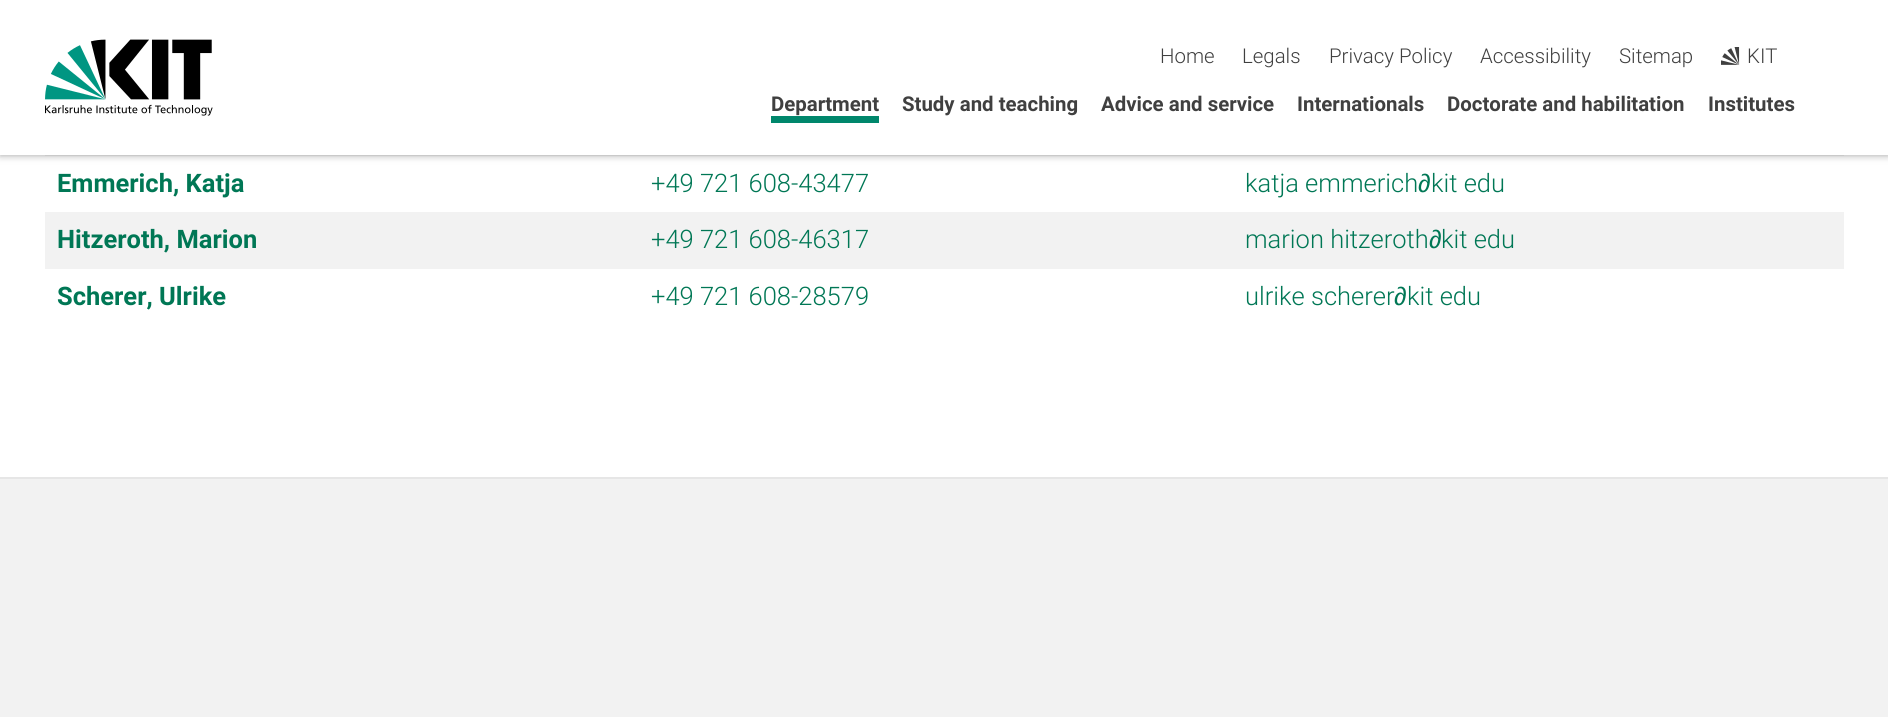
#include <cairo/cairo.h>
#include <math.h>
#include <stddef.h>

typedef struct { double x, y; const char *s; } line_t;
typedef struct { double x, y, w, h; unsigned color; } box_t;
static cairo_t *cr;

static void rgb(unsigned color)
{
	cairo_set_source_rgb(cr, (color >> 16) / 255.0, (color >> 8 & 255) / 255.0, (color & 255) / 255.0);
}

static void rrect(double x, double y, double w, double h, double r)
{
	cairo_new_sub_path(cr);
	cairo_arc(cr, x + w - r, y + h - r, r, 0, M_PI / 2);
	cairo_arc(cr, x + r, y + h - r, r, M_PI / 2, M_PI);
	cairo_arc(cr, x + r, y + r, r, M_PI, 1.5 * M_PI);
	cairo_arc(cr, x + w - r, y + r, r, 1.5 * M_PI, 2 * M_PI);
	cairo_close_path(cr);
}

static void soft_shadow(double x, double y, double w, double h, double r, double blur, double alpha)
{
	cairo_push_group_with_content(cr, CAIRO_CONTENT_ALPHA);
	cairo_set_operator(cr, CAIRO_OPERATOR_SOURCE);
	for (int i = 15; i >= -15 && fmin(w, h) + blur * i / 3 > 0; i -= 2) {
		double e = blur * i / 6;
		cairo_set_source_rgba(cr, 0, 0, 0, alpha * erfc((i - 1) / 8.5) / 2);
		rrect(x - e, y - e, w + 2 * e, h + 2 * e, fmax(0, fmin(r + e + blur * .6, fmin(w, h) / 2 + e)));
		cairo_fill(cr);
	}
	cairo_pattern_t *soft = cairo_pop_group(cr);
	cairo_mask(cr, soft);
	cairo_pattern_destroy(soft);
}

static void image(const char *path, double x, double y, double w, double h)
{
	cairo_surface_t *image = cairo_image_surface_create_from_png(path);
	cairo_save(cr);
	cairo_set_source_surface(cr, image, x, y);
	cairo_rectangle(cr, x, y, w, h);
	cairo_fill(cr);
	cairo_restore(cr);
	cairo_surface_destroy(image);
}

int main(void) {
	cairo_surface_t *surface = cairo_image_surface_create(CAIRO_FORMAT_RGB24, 1888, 717);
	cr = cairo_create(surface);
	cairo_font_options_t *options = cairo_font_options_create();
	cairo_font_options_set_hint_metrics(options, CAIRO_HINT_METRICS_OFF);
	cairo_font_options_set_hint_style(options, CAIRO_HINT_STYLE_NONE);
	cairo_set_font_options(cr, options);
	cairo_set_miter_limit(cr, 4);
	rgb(0xffffff);
	cairo_paint(cr);
	rgb(0xf2f2f2);
	cairo_rectangle(cr, 45, 155, 1799, 1);
	cairo_fill(cr);
	rgb(0x404040);
	soft_shadow(0, 0, 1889, 155, 0, 4, 0.5);
	rgb(0xffffff);
	cairo_rectangle(cr, 0, 0, 1888, 155);
	cairo_fill(cr);
	image("img/1.png", 45, 39, 168, 77);
	image("img/2.png", 1721, 47, 19, 18);
	{
		static const box_t items[] = {
			{771, 116, 108, 7, 0x00876c},
			{45, 212, 1799, 57, 0xf2f2f2},
			{0, 479, 1888, 238, 0xf2f2f2},
			{0, 477, 1888, 2, 0xe6e6e6},
		};
		for (size_t i = 0; i < sizeof items / sizeof *items; i++) {
			rgb(items[i].color);
			cairo_rectangle(cr, items[i].x, items[i].y, items[i].w, items[i].h);
			cairo_fill(cr);
		}
	}
	cairo_select_font_face(cr, "Roboto Light", CAIRO_FONT_SLANT_NORMAL, CAIRO_FONT_WEIGHT_NORMAL);
	cairo_set_font_size(cr, 20.4);
	rgb(0x404040);
	{
		static const line_t items[] = {
			{1160, 63, "Home"},
			{1242, 63, "Legals"},
			{1329, 63, "Privacy Policy"},
			{1480, 63, "Accessibility"},
			{1619, 63, "Sitemap"},
			{1747, 63, "KIT"},
		};
		for (size_t i = 0; i < sizeof items / sizeof *items; i++) {
			cairo_move_to(cr, items[i].x, items[i].y);
			cairo_show_text(cr, items[i].s);
		}
	}
	cairo_select_font_face(cr, "Roboto", CAIRO_FONT_SLANT_NORMAL, CAIRO_FONT_WEIGHT_BOLD);
	{
		static const line_t items[] = {
			{771, 111, "Department"},
			{902, 111, "Study and teaching"},
			{1101, 111, "Advice and service"},
			{1297, 111, "Internationals"},
			{1447, 111, "Doctorate and habilitation"},
			{1708, 111, "Institutes"},
		};
		for (size_t i = 0; i < sizeof items / sizeof *items; i++) {
			cairo_move_to(cr, items[i].x, items[i].y);
			cairo_show_text(cr, items[i].s);
		}
	}
	cairo_set_font_size(cr, 25.5);
	rgb(0x007755);
	cairo_move_to(cr, 57, 192);
	cairo_show_text(cr, "Emmerich, Katja");
	cairo_select_font_face(cr, "Roboto Light", CAIRO_FONT_SLANT_NORMAL, CAIRO_FONT_WEIGHT_NORMAL);
	cairo_move_to(cr, 651, 192);
	cairo_show_text(cr, "+49 721 608-43477");
	cairo_move_to(cr, 1245, 192);
	cairo_show_text(cr, "katja emmerich");
	cairo_select_font_face(cr, "Liberation Sans", CAIRO_FONT_SLANT_NORMAL, CAIRO_FONT_WEIGHT_NORMAL);
	cairo_move_to(cr, 1418, 192);
	cairo_show_text(cr, "∂");
	cairo_select_font_face(cr, "Roboto Light", CAIRO_FONT_SLANT_NORMAL, CAIRO_FONT_WEIGHT_NORMAL);
	cairo_move_to(cr, 1431, 192);
	cairo_show_text(cr, "kit edu");
	cairo_select_font_face(cr, "Roboto", CAIRO_FONT_SLANT_NORMAL, CAIRO_FONT_WEIGHT_BOLD);
	cairo_move_to(cr, 57, 248);
	cairo_show_text(cr, "Hitzeroth, Marion");
	cairo_select_font_face(cr, "Roboto Light", CAIRO_FONT_SLANT_NORMAL, CAIRO_FONT_WEIGHT_NORMAL);
	cairo_move_to(cr, 651, 248);
	cairo_show_text(cr, "+49 721 608-46317");
	cairo_move_to(cr, 1245, 248);
	cairo_show_text(cr, "marion hitzeroth");
	cairo_select_font_face(cr, "Liberation Sans", CAIRO_FONT_SLANT_NORMAL, CAIRO_FONT_WEIGHT_NORMAL);
	cairo_move_to(cr, 1429, 248);
	cairo_show_text(cr, "∂");
	cairo_select_font_face(cr, "Roboto Light", CAIRO_FONT_SLANT_NORMAL, CAIRO_FONT_WEIGHT_NORMAL);
	cairo_move_to(cr, 1441, 248);
	cairo_show_text(cr, "kit edu");
	cairo_select_font_face(cr, "Roboto", CAIRO_FONT_SLANT_NORMAL, CAIRO_FONT_WEIGHT_BOLD);
	cairo_move_to(cr, 57, 305);
	cairo_show_text(cr, "Scherer, Ulrike");
	cairo_select_font_face(cr, "Roboto Light", CAIRO_FONT_SLANT_NORMAL, CAIRO_FONT_WEIGHT_NORMAL);
	cairo_move_to(cr, 651, 305);
	cairo_show_text(cr, "+49 721 608-28579");
	cairo_move_to(cr, 1245, 305);
	cairo_show_text(cr, "ulrike scherer");
	cairo_select_font_face(cr, "Liberation Sans", CAIRO_FONT_SLANT_NORMAL, CAIRO_FONT_WEIGHT_NORMAL);
	cairo_move_to(cr, 1394, 305);
	cairo_show_text(cr, "∂");
	cairo_select_font_face(cr, "Roboto Light", CAIRO_FONT_SLANT_NORMAL, CAIRO_FONT_WEIGHT_NORMAL);
	cairo_move_to(cr, 1407, 305);
	cairo_show_text(cr, "kit edu");
	cairo_surface_write_to_png(surface, "page.png");
	cairo_font_options_destroy(options);
	cairo_destroy(cr);
	cairo_surface_destroy(surface);
	return 0;
}
